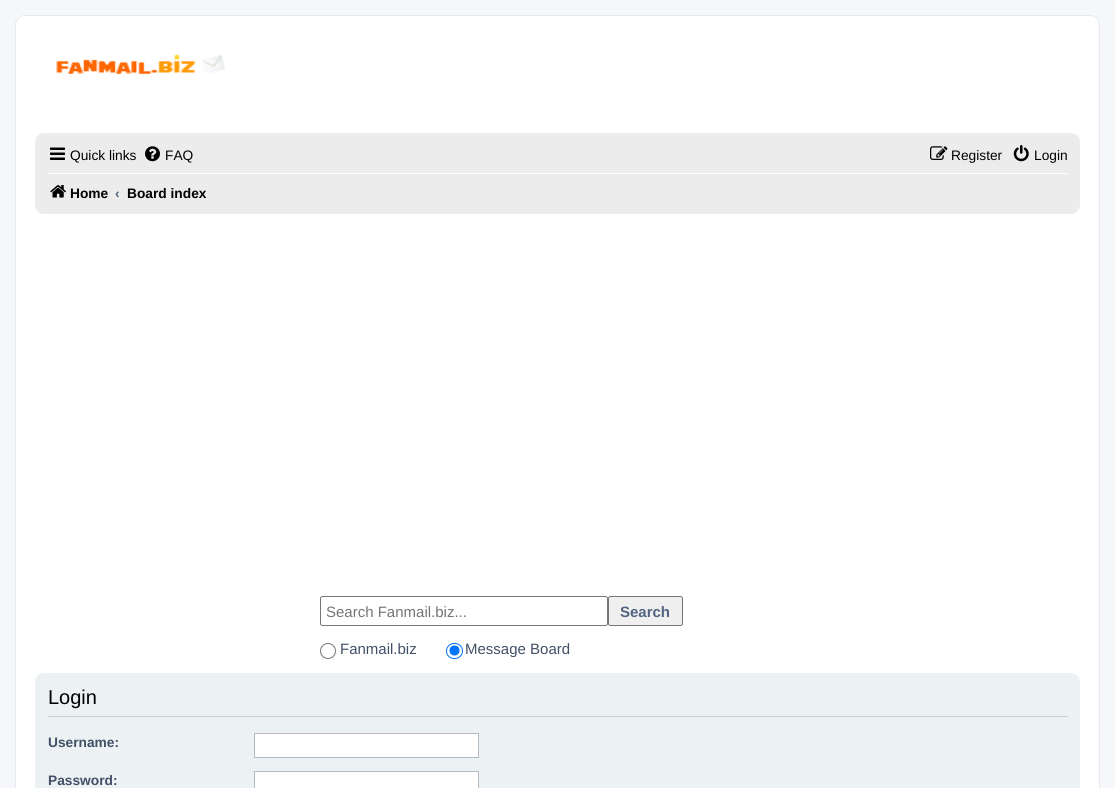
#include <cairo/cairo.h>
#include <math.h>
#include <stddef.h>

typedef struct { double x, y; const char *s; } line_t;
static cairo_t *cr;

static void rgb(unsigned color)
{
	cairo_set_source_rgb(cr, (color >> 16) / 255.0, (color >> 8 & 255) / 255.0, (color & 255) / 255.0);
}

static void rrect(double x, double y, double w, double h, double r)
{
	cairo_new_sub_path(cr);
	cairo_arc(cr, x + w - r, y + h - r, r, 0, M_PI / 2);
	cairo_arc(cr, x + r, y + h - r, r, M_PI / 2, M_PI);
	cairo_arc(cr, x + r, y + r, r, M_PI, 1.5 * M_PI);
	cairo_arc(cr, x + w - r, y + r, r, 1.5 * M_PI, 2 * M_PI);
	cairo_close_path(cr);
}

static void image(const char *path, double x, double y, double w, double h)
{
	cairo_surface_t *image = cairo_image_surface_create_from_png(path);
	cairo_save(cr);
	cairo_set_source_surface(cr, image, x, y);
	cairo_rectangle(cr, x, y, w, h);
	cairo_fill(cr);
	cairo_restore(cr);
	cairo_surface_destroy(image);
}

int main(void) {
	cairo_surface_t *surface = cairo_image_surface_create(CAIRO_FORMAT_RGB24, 1115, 788);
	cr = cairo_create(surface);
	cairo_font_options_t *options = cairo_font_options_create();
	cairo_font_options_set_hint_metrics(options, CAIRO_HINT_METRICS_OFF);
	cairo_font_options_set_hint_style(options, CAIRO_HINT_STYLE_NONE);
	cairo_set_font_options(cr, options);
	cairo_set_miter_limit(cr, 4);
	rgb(0xf5f7fa);
	cairo_paint(cr);
	rgb(0xffffff);
	rrect(15.5, 15.5, 1084, 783, 9.5);
	cairo_fill_preserve(cr);
	rgb(0xe6e9ed);
	cairo_set_line_width(cr, 1);
	cairo_stroke(cr);
	image("img/1.png", 56, 53, 169, 21);
	rgb(0xececec);
	rrect(35, 133, 1045, 81, 9);
	cairo_fill(cr);
	image("img/2.png", 50, 147, 15, 13);
	image("img/3.png", 145, 146, 15, 16);
	image("img/4.png", 930, 146, 18, 14);
	image("img/5.png", 1013, 145, 16, 17);
	rgb(0xffffff);
	cairo_rectangle(cr, 48, 173, 1020, 1);
	cairo_fill(cr);
	image("img/6.png", 50, 185, 16, 13);
	rrect(320.5, 596.5, 287, 29, 2);
	rgb(0x767676);
	cairo_stroke(cr);
	rgb(0xefefef);
	rrect(608.5, 596.5, 74, 29, 2);
	cairo_fill_preserve(cr);
	rgb(0x767676);
	cairo_stroke(cr);
	cairo_arc(cr, 328, 651, 7.5, 0, 2 * M_PI);
	cairo_stroke(cr);
	rrect(446.5, 643.5, 16, 15, 7.5);
	rgb(0x0075ff);
	cairo_stroke(cr);
	cairo_arc(cr, 454.5, 650.5, 5, 0, 2 * M_PI);
	cairo_fill(cr);
	rgb(0xecf1f3);
	rrect(35, 673, 1045, 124, 9);
	cairo_fill(cr);
	rgb(0xcccccc);
	cairo_rectangle(cr, 48, 716, 1020, 1);
	cairo_fill(cr);
	rgb(0xffffff);
	cairo_rectangle(cr, 254.5, 733.5, 224, 24);
	cairo_fill_preserve(cr);
	rgb(0xb4bac0);
	cairo_stroke(cr);
	rgb(0xffffff);
	cairo_rectangle(cr, 254.5, 771.5, 224, 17);
	cairo_fill_preserve(cr);
	rgb(0xb4bac0);
	cairo_stroke(cr);
	cairo_select_font_face(cr, "Liberation Sans", CAIRO_FONT_SLANT_NORMAL, CAIRO_FONT_WEIGHT_NORMAL);
	cairo_set_font_size(cr, 13.75);
	rgb(0x000000);
	{
		static const line_t items[] = {
			{70, 160, "Quick links"},
			{165, 160, "FAQ"},
			{951, 160, "Register"},
			{1034, 160, "Login"},
		};
		for (size_t i = 0; i < sizeof items / sizeof *items; i++) {
			cairo_move_to(cr, items[i].x, items[i].y);
			cairo_show_text(cr, items[i].s);
		}
	}
	cairo_select_font_face(cr, "Liberation Sans", CAIRO_FONT_SLANT_NORMAL, CAIRO_FONT_WEIGHT_BOLD);
	cairo_move_to(cr, 70, 198);
	cairo_show_text(cr, "Home");
	rgb(0x536482);
	cairo_move_to(cr, 115, 198);
	cairo_show_text(cr, "‹");
	rgb(0x000000);
	cairo_move_to(cr, 127, 198);
	cairo_show_text(cr, "Board index");
	cairo_select_font_face(cr, "Liberation Sans", CAIRO_FONT_SLANT_NORMAL, CAIRO_FONT_WEIGHT_NORMAL);
	cairo_set_font_size(cr, 15);
	rgb(0x757575);
	cairo_move_to(cr, 326, 617);
	cairo_show_text(cr, "Search Fanmail.biz...");
	cairo_select_font_face(cr, "Liberation Sans", CAIRO_FONT_SLANT_NORMAL, CAIRO_FONT_WEIGHT_BOLD);
	rgb(0x536482);
	cairo_move_to(cr, 620, 617);
	cairo_show_text(cr, "Search");
	cairo_select_font_face(cr, "Liberation Sans", CAIRO_FONT_SLANT_NORMAL, CAIRO_FONT_WEIGHT_NORMAL);
	rgb(0x425067);
	cairo_move_to(cr, 340, 654);
	cairo_show_text(cr, "Fanmail.biz");
	cairo_move_to(cr, 465, 654);
	cairo_show_text(cr, "Message Board");
	cairo_set_font_size(cr, 20);
	rgb(0x000000);
	cairo_move_to(cr, 48, 704);
	cairo_show_text(cr, "Login");
	cairo_select_font_face(cr, "Liberation Sans", CAIRO_FONT_SLANT_NORMAL, CAIRO_FONT_WEIGHT_BOLD);
	cairo_set_font_size(cr, 13.75);
	rgb(0x425067);
	cairo_move_to(cr, 48, 747);
	cairo_show_text(cr, "Username:");
	cairo_move_to(cr, 48, 785);
	cairo_show_text(cr, "Password:");
	cairo_surface_write_to_png(surface, "page.png");
	cairo_font_options_destroy(options);
	cairo_destroy(cr);
	cairo_surface_destroy(surface);
	return 0;
}
